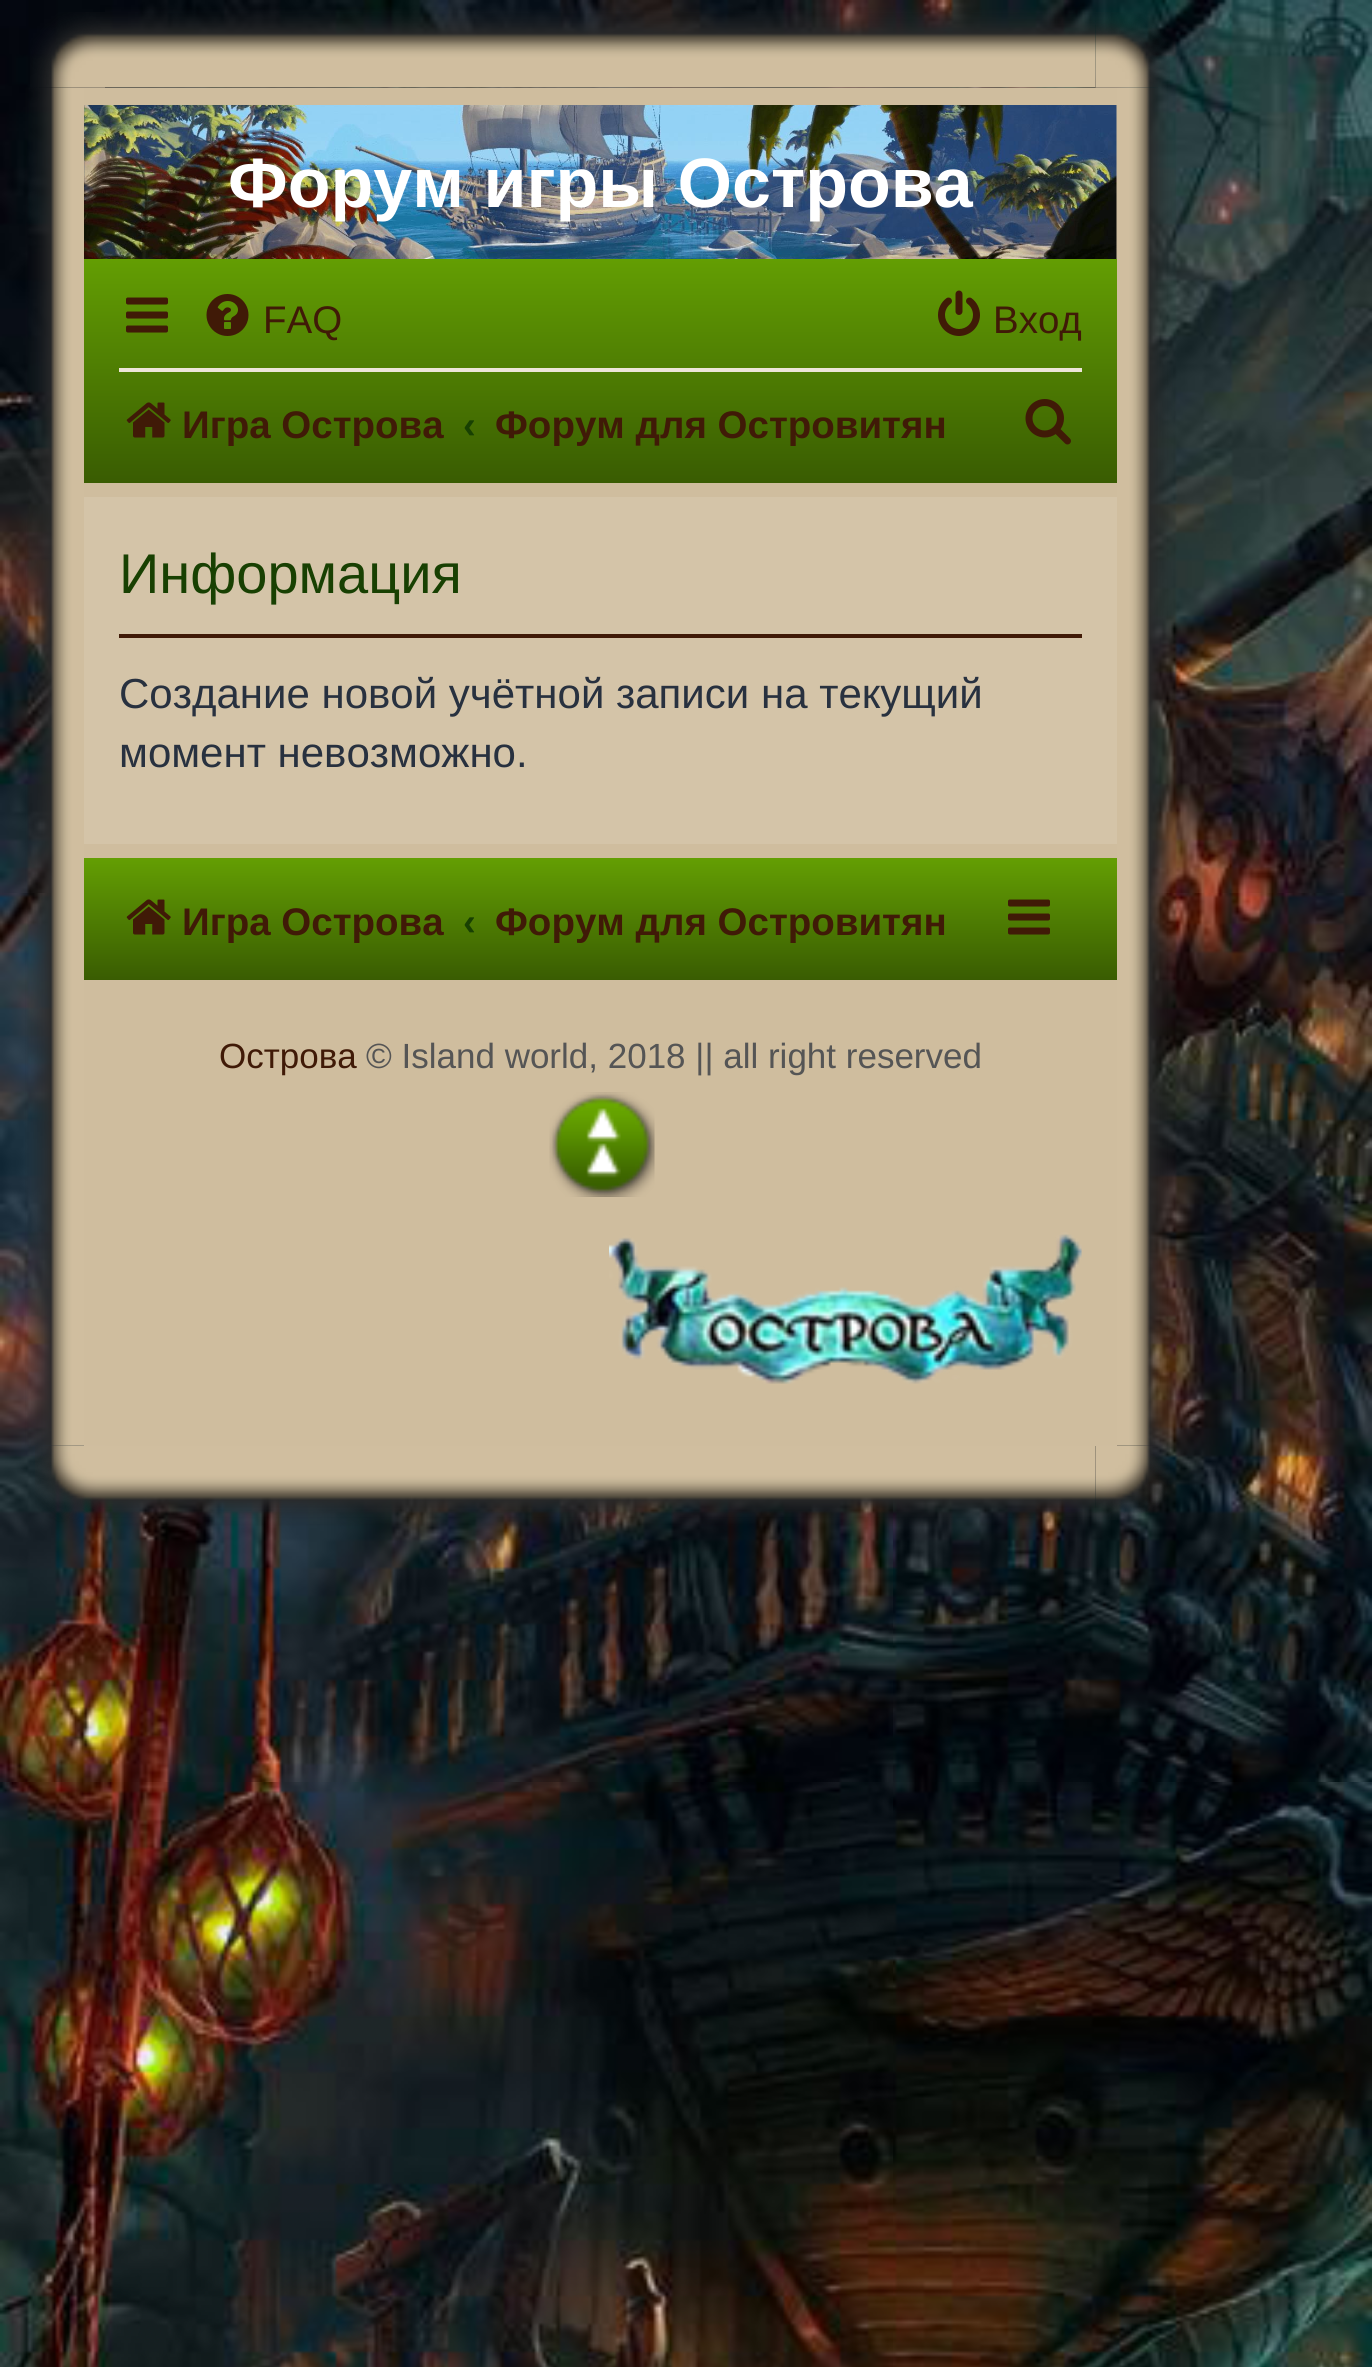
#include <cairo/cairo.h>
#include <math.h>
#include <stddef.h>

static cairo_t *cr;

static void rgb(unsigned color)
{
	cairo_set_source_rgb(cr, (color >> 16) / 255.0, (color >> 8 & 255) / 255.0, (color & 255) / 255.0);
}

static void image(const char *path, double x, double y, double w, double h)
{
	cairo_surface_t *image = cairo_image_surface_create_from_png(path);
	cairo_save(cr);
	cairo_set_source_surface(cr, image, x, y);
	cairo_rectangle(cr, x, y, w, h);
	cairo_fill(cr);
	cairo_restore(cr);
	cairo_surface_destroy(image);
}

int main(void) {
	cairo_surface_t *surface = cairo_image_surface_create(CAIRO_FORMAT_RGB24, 1372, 2367);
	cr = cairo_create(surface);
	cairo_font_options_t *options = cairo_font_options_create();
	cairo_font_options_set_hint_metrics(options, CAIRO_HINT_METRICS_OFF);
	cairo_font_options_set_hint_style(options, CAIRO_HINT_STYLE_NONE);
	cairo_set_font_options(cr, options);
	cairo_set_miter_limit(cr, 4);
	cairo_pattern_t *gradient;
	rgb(0xffffff);
	cairo_paint(cr);
	image("img/1.png", 0, 1533, 1372, 834);
	image("img/2.png", 0, 0, 1372, 1533);
	image("img/6.png", 25, 87, 80, 1359);
	image("img/3.png", 30, 12, 75, 76);
	image("img/4.png", 105, 7, 991, 81);
	image("img/7.png", 1095, 87, 81, 1359);
	image("img/5.png", 1095, 12, 75, 76);
	rgb(0xcfbd9e);
	cairo_rectangle(cr, 84, 88, 1033, 1358);
	cairo_fill(cr);
	image("img/8.png", 84, 105, 1033, 154);
	gradient = cairo_pattern_create_linear(600, 255, 600, 483);
	cairo_pattern_add_color_stop_rgba(gradient, 0, 0.392, 0.624, 0.012, 1);
	cairo_pattern_add_color_stop_rgba(gradient, 1, 0.224, 0.361, 0.008, 1);
	cairo_set_source(cr, gradient);
	cairo_pattern_destroy(gradient);
	cairo_rectangle(cr, 84, 259, 1033, 224);
	cairo_fill(cr);
	image("img/9.png", 126, 297, 42, 36);
	image("img/10.png", 206, 294, 43, 42);
	image("img/11.png", 938, 290, 42, 46);
	rgb(0xede5d9);
	cairo_rectangle(cr, 119, 368, 963, 4);
	cairo_fill(cr);
	image("img/12.png", 126, 402, 45, 36);
	image("img/13.png", 1025, 399, 46, 46);
	rgb(0xd4c4a8);
	cairo_rectangle(cr, 84, 497, 1033, 347);
	cairo_fill(cr);
	rgb(0x401a07);
	cairo_rectangle(cr, 119, 634, 963, 4);
	cairo_fill(cr);
	gradient = cairo_pattern_create_linear(600, 857, 600, 980);
	cairo_pattern_add_color_stop_rgba(gradient, 0, 0.392, 0.624, 0.012, 1);
	cairo_pattern_add_color_stop_rgba(gradient, 1, 0.224, 0.361, 0.008, 1);
	cairo_set_source(cr, gradient);
	cairo_pattern_destroy(gradient);
	cairo_rectangle(cr, 84, 858, 1033, 122);
	cairo_fill(cr);
	image("img/14.png", 126, 899, 45, 36);
	image("img/15.png", 1008, 899, 42, 36);
	image("img/16.png", 549, 1092, 106, 105);
	image("img/17.png", 609, 1232, 473, 152);
	image("img/18.png", 35, 1445, 70, 77);
	image("img/19.png", 105, 1446, 991, 80);
	image("img/20.png", 1095, 1445, 75, 75);
	cairo_select_font_face(cr, "Liberation Sans", CAIRO_FONT_SLANT_NORMAL, CAIRO_FONT_WEIGHT_BOLD);
	cairo_set_font_size(cr, 70);
	rgb(0xffffff);
	cairo_move_to(cr, 228, 207);
	cairo_show_text(cr, "Форум игры Острова");
	cairo_select_font_face(cr, "Liberation Sans", CAIRO_FONT_SLANT_NORMAL, CAIRO_FONT_WEIGHT_NORMAL);
	cairo_set_font_size(cr, 38.5);
	rgb(0x401a07);
	cairo_move_to(cr, 263, 333);
	cairo_show_text(cr, "FAQ");
	cairo_move_to(cr, 993, 333);
	cairo_show_text(cr, "Вход");
	cairo_select_font_face(cr, "Liberation Sans", CAIRO_FONT_SLANT_NORMAL, CAIRO_FONT_WEIGHT_BOLD);
	cairo_move_to(cr, 182, 438);
	cairo_show_text(cr, "Игра Острова");
	rgb(0x184002);
	cairo_move_to(cr, 463, 438);
	cairo_show_text(cr, "‹");
	rgb(0x401a07);
	cairo_move_to(cr, 495, 438);
	cairo_show_text(cr, "Форум для Островитян");
	cairo_select_font_face(cr, "Liberation Sans", CAIRO_FONT_SLANT_NORMAL, CAIRO_FONT_WEIGHT_NORMAL);
	cairo_set_font_size(cr, 56);
	rgb(0x184002);
	cairo_move_to(cr, 119, 593);
	cairo_show_text(cr, "Информация");
	cairo_set_font_size(cr, 42);
	rgb(0x28313f);
	cairo_move_to(cr, 119, 708);
	cairo_show_text(cr, "Создание новой учётной записи на текущий");
	cairo_move_to(cr, 119, 767);
	cairo_show_text(cr, "момент невозможно.");
	cairo_select_font_face(cr, "Liberation Sans", CAIRO_FONT_SLANT_NORMAL, CAIRO_FONT_WEIGHT_BOLD);
	cairo_set_font_size(cr, 38.5);
	rgb(0x401a07);
	cairo_move_to(cr, 182, 935);
	cairo_show_text(cr, "Игра Острова");
	rgb(0x184002);
	cairo_move_to(cr, 463, 935);
	cairo_show_text(cr, "‹");
	rgb(0x401a07);
	cairo_move_to(cr, 495, 935);
	cairo_show_text(cr, "Форум для Островитян");
	cairo_select_font_face(cr, "Liberation Sans", CAIRO_FONT_SLANT_NORMAL, CAIRO_FONT_WEIGHT_NORMAL);
	cairo_set_font_size(cr, 35);
	cairo_move_to(cr, 219, 1068);
	cairo_show_text(cr, "Острова");
	rgb(0x555555);
	cairo_move_to(cr, 366, 1068);
	cairo_show_text(cr, "© Island world, 2018 || all right reserved");
	cairo_surface_write_to_png(surface, "page.png");
	cairo_font_options_destroy(options);
	cairo_destroy(cr);
	cairo_surface_destroy(surface);
	return 0;
}
